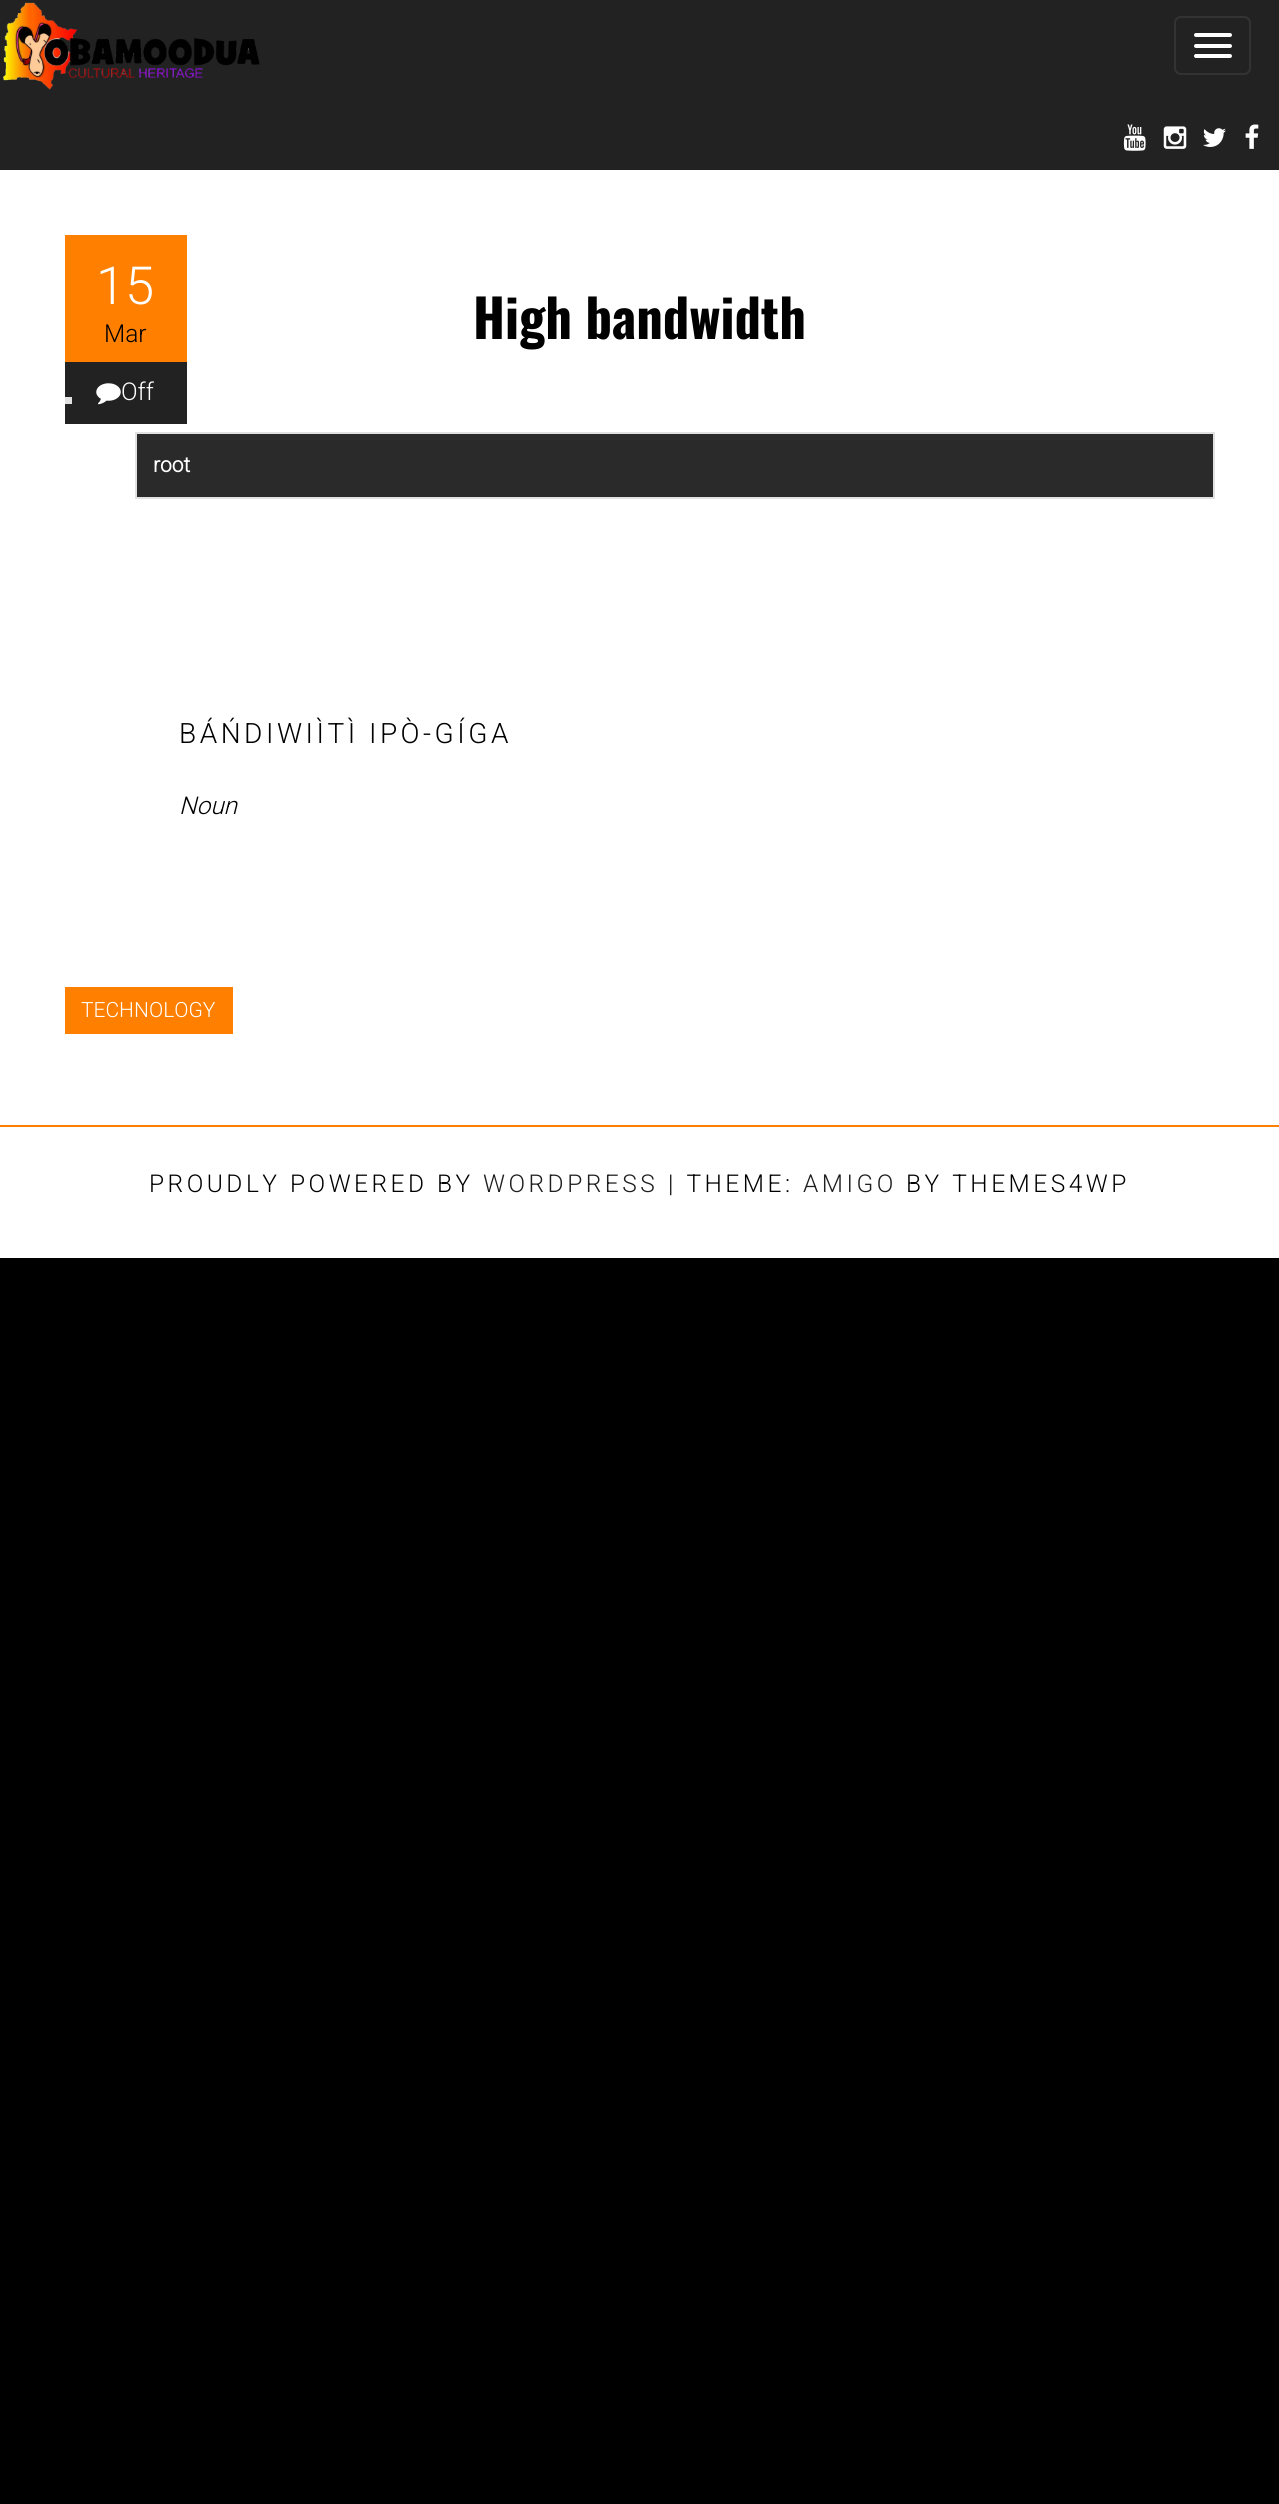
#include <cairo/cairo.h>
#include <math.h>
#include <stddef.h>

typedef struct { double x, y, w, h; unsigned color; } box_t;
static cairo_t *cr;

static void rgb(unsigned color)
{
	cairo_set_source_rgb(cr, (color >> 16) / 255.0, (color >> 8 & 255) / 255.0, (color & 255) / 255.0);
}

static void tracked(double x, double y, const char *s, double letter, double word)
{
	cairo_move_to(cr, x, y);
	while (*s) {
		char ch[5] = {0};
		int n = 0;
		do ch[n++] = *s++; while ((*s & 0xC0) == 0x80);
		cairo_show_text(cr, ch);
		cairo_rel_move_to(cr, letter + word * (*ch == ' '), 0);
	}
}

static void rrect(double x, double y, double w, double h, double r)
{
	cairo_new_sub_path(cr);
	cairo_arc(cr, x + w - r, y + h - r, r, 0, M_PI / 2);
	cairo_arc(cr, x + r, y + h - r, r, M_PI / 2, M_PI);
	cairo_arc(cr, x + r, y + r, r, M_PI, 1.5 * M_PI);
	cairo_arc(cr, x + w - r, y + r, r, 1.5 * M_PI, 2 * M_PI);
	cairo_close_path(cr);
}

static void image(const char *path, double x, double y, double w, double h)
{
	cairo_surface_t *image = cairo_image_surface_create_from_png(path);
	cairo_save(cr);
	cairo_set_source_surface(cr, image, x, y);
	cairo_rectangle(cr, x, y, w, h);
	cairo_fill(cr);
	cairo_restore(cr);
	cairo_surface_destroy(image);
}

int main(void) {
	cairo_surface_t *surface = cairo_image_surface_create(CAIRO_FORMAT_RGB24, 1279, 2504);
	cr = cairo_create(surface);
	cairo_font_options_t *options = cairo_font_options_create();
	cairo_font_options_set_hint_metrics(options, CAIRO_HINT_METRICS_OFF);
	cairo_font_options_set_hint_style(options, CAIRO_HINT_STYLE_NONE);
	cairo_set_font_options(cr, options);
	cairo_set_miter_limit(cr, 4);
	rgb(0x000000);
	cairo_paint(cr);
	rgb(0x222222);
	cairo_rectangle(cr, 0, 0, 1279, 170);
	cairo_fill(cr);
	image("img/1.png", 3, 2, 257, 88);
	rrect(1175, 17, 75, 57, 6);
	rgb(0x333333);
	cairo_stroke(cr);
	rgb(0xffffff);
	rrect(1194, 33, 38, 4, 2);
	cairo_fill(cr);
	rrect(1194, 44, 38, 4, 2);
	cairo_fill(cr);
	rrect(1194, 54, 38, 4, 2);
	cairo_fill(cr);
	image("img/2.png", 1123, 124, 23, 27);
	image("img/3.png", 1163, 126, 24, 23);
	image("img/4.png", 1203, 128, 23, 19);
	image("img/5.png", 1245, 124, 14, 25);
	{
		static const box_t items[] = {
			{0, 170, 1279, 955, 0xffffff},
			{65, 235, 122, 127, 0xff7f00},
			{65, 362, 122, 62, 0x222222},
		};
		for (size_t i = 0; i < sizeof items / sizeof *items; i++) {
			rgb(items[i].color);
			cairo_rectangle(cr, items[i].x, items[i].y, items[i].w, items[i].h);
			cairo_fill(cr);
		}
	}
	image("img/6.png", 96, 383, 25, 22);
	rgb(0xe1e1e1);
	cairo_rectangle(cr, 65, 397, 7, 7);
	cairo_fill(cr);
	rgb(0x2a2a2a);
	cairo_rectangle(cr, 136, 433, 1078, 65);
	cairo_fill_preserve(cr);
	rgb(0xe1e1e1);
	cairo_stroke(cr);
	{
		static const box_t items[] = {
			{65, 987, 168, 47, 0xff7f00},
			{0, 1127, 1279, 131, 0xffffff},
			{0, 1125, 1279, 2, 0xff7f00},
		};
		for (size_t i = 0; i < sizeof items / sizeof *items; i++) {
			rgb(items[i].color);
			cairo_rectangle(cr, items[i].x, items[i].y, items[i].w, items[i].h);
			cairo_fill(cr);
		}
	}
	cairo_select_font_face(cr, "Roboto Light", CAIRO_FONT_SLANT_NORMAL, CAIRO_FONT_WEIGHT_NORMAL);
	cairo_set_font_size(cr, 52.5);
	rgb(0xffffff);
	cairo_move_to(cr, 96, 304);
	cairo_show_text(cr, "15");
	cairo_set_font_size(cr, 24.5);
	rgb(0x000000);
	cairo_move_to(cr, 104, 342);
	cairo_show_text(cr, "Mar");
	rgb(0xffffff);
	cairo_move_to(cr, 121, 400);
	cairo_show_text(cr, "Off");
	cairo_select_font_face(cr, "Oswald", CAIRO_FONT_SLANT_NORMAL, CAIRO_FONT_WEIGHT_BOLD);
	cairo_set_font_size(cr, 52.5);
	rgb(0x000000);
	cairo_move_to(cr, 473, 339);
	cairo_show_text(cr, "High bandwidth");
	cairo_select_font_face(cr, "Roboto", CAIRO_FONT_SLANT_NORMAL, CAIRO_FONT_WEIGHT_BOLD);
	cairo_set_font_size(cr, 21);
	rgb(0xffffff);
	cairo_move_to(cr, 153, 472);
	cairo_show_text(cr, "root");
	cairo_select_font_face(cr, "Roboto Light", CAIRO_FONT_SLANT_NORMAL, CAIRO_FONT_WEIGHT_NORMAL);
	cairo_set_font_size(cr, 28);
	rgb(0x000000);
	tracked(179, 743, "BÁŃDIWIÌTÌ IPÒ-GÍGA", 3.5, 0);
	cairo_select_font_face(cr, "Roboto Light", CAIRO_FONT_SLANT_ITALIC, CAIRO_FONT_WEIGHT_NORMAL);
	cairo_set_font_size(cr, 24.5);
	cairo_move_to(cr, 179, 814);
	cairo_show_text(cr, "Noun");
	cairo_select_font_face(cr, "Roboto Light", CAIRO_FONT_SLANT_NORMAL, CAIRO_FONT_WEIGHT_NORMAL);
	cairo_set_font_size(cr, 21);
	rgb(0xffffff);
	cairo_move_to(cr, 81, 1017);
	cairo_show_text(cr, "TECHNOLOGY");
	cairo_set_font_size(cr, 24.5);
	rgb(0x000000);
	tracked(149, 1192, "PROUDLY POWERED BY", 3.5, 0);
	rgb(0x1f1f1f);
	tracked(483, 1192, "WORDPRESS", 3.5, 0);
	rgb(0x000000);
	tracked(668, 1192, "| THEME:", 3.5, 0);
	rgb(0x1f1f1f);
	tracked(803, 1192, "AMIGO", 3.5, 0);
	rgb(0x000000);
	tracked(906, 1192, "BY THEMES4WP", 3.5, 0);
	cairo_surface_write_to_png(surface, "page.png");
	cairo_font_options_destroy(options);
	cairo_destroy(cr);
	cairo_surface_destroy(surface);
	return 0;
}
